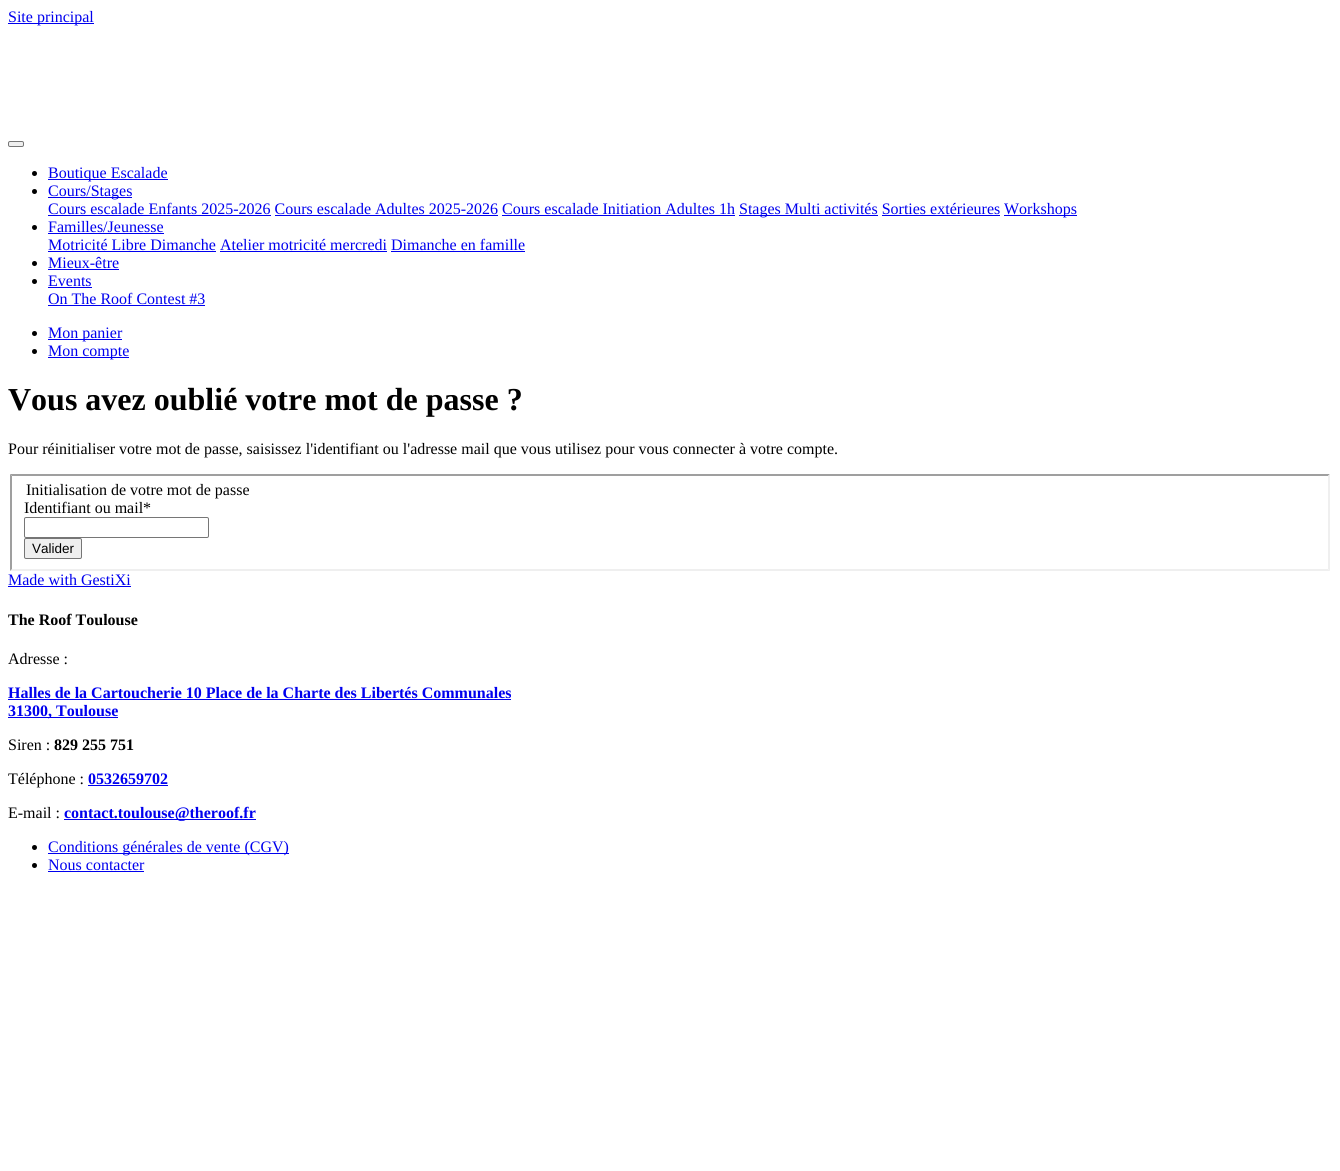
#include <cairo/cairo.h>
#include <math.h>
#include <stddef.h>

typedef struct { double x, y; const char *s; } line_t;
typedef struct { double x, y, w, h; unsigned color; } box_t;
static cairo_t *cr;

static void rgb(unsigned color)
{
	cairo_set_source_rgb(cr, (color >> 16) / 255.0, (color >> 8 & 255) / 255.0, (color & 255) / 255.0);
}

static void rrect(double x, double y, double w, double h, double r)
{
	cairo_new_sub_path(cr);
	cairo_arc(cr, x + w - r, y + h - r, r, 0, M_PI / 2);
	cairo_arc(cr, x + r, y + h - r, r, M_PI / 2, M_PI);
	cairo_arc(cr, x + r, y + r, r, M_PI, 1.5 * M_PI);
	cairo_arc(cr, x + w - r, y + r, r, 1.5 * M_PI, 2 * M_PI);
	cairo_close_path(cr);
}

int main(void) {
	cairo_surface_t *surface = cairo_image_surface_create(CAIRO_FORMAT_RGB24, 1340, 1171);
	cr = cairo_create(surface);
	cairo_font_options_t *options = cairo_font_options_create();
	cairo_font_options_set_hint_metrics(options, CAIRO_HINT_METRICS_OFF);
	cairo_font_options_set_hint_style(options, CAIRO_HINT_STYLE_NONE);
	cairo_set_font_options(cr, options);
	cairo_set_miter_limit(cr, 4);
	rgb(0xffffff);
	cairo_paint(cr);
	rgb(0x0000ee);
	cairo_rectangle(cr, 8, 23, 86, 1);
	cairo_fill(cr);
	rgb(0xefefef);
	rrect(8.5, 141.5, 15, 5, 1.5);
	cairo_fill_preserve(cr);
	rgb(0x767676);
	cairo_set_line_width(cr, 1);
	cairo_stroke(cr);
	rgb(0x000000);
	cairo_arc(cr, 34.5, 173.5, 2.5, 0, 2 * M_PI);
	cairo_fill(cr);
	rgb(0x0000ee);
	cairo_rectangle(cr, 48, 179, 120, 1);
	cairo_fill(cr);
	rgb(0x000000);
	cairo_arc(cr, 34.5, 191.5, 2.5, 0, 2 * M_PI);
	cairo_fill(cr);
	{
		static const box_t items[] = {
			{48, 197, 84, 1, 0x0000ee},
			{48, 215, 223, 1, 0x0000ee},
			{739, 215, 139, 1, 0x0000ee},
			{1004, 215, 73, 1, 0x0000ee},
			{275, 215, 223, 1, 0x0000ee},
			{502, 215, 233, 1, 0x0000ee},
			{882, 215, 118, 1, 0x0000ee},
		};
		for (size_t i = 0; i < sizeof items / sizeof *items; i++) {
			rgb(items[i].color);
			cairo_rectangle(cr, items[i].x, items[i].y, items[i].w, items[i].h);
			cairo_fill(cr);
		}
	}
	rgb(0x000000);
	cairo_arc(cr, 34.5, 227.5, 2.5, 0, 2 * M_PI);
	cairo_fill(cr);
	{
		static const box_t items[] = {
			{48, 233, 116, 1, 0x0000ee},
			{48, 251, 168, 1, 0x0000ee},
			{220, 251, 167, 1, 0x0000ee},
			{391, 251, 134, 1, 0x0000ee},
		};
		for (size_t i = 0; i < sizeof items / sizeof *items; i++) {
			rgb(items[i].color);
			cairo_rectangle(cr, items[i].x, items[i].y, items[i].w, items[i].h);
			cairo_fill(cr);
		}
	}
	rgb(0x000000);
	cairo_arc(cr, 34.5, 263.5, 2.5, 0, 2 * M_PI);
	cairo_fill(cr);
	rgb(0x0000ee);
	cairo_rectangle(cr, 48, 269, 71, 1);
	cairo_fill(cr);
	rgb(0x000000);
	cairo_arc(cr, 34.5, 281.5, 2.5, 0, 2 * M_PI);
	cairo_fill(cr);
	rgb(0x0000ee);
	cairo_rectangle(cr, 48, 287, 44, 1);
	cairo_fill(cr);
	cairo_rectangle(cr, 48, 305, 157, 1);
	cairo_fill(cr);
	rgb(0x000000);
	cairo_arc(cr, 34.5, 333.5, 2.5, 0, 2 * M_PI);
	cairo_fill(cr);
	rgb(0x0000ee);
	cairo_rectangle(cr, 48, 339, 74, 1);
	cairo_fill(cr);
	rgb(0x000000);
	cairo_arc(cr, 34.5, 351.5, 2.5, 0, 2 * M_PI);
	cairo_fill(cr);
	rgb(0x0000ee);
	cairo_rectangle(cr, 48, 357, 81, 1);
	cairo_fill(cr);
	rgb(0x9f9f9f);
	cairo_new_path(cr);
	cairo_move_to(cr, 10, 474);
	cairo_line_to(cr, 1330, 474);
	cairo_line_to(cr, 1328, 476);
	cairo_line_to(cr, 12, 476);
	cairo_close_path(cr);
	cairo_fill(cr);
	rgb(0xefefef);
	cairo_new_path(cr);
	cairo_move_to(cr, 1330, 474);
	cairo_line_to(cr, 1330, 571);
	cairo_line_to(cr, 1328, 569);
	cairo_line_to(cr, 1328, 476);
	cairo_close_path(cr);
	cairo_fill(cr);
	cairo_new_path(cr);
	cairo_move_to(cr, 1330, 571);
	cairo_line_to(cr, 10, 571);
	cairo_line_to(cr, 12, 569);
	cairo_line_to(cr, 1328, 569);
	cairo_close_path(cr);
	cairo_fill(cr);
	rgb(0x9f9f9f);
	cairo_new_path(cr);
	cairo_move_to(cr, 10, 571);
	cairo_line_to(cr, 10, 474);
	cairo_line_to(cr, 12, 476);
	cairo_line_to(cr, 12, 569);
	cairo_close_path(cr);
	cairo_fill(cr);
	rrect(24.5, 517.5, 184, 20, 1.5);
	rgb(0x767676);
	cairo_stroke(cr);
	rgb(0xefefef);
	rrect(24.5, 538.5, 57, 20, 1.5);
	cairo_fill_preserve(cr);
	rgb(0x767676);
	cairo_stroke(cr);
	{
		static const box_t items[] = {
			{8, 586, 123, 1, 0x0000ee},
			{8, 699, 503, 1, 0x0000ee},
			{8, 717, 110, 1, 0x0000ee},
			{88, 785, 80, 1, 0x0000ee},
			{64, 819, 192, 1, 0x0000ee},
		};
		for (size_t i = 0; i < sizeof items / sizeof *items; i++) {
			rgb(items[i].color);
			cairo_rectangle(cr, items[i].x, items[i].y, items[i].w, items[i].h);
			cairo_fill(cr);
		}
	}
	rgb(0x000000);
	cairo_arc(cr, 34.5, 847.5, 2.5, 0, 2 * M_PI);
	cairo_fill(cr);
	rgb(0x0000ee);
	cairo_rectangle(cr, 48, 853, 241, 1);
	cairo_fill(cr);
	rgb(0x000000);
	cairo_arc(cr, 34.5, 865.5, 2.5, 0, 2 * M_PI);
	cairo_fill(cr);
	rgb(0x0000ee);
	cairo_rectangle(cr, 48, 871, 96, 1);
	cairo_fill(cr);
	cairo_select_font_face(cr, "Liberation Serif", CAIRO_FONT_SLANT_NORMAL, CAIRO_FONT_WEIGHT_NORMAL);
	cairo_set_font_size(cr, 16);
	{
		static const line_t items[] = {
			{8, 22, "Site principal"},
			{48, 178, "Boutique Escalade"},
			{48, 196, "Cours/Stages"},
			{48, 214, "Cours escalade Enfants 2025-2026 Cours escalade Adultes 2025-2026 Cours escalade Initiation Adultes 1h"},
			{739, 214, "Stages Multi activités Sorties extérieures"},
			{1004, 214, "Workshops"},
			{48, 232, "Familles/Jeunesse"},
			{48, 250, "Motricité Libre Dimanche Atelier motricité mercredi Dimanche en famille"},
			{48, 268, "Mieux-être"},
			{48, 286, "Events"},
			{48, 304, "On The Roof Contest #3"},
			{48, 338, "Mon panier"},
			{48, 356, "Mon compte"},
		};
		for (size_t i = 0; i < sizeof items / sizeof *items; i++) {
			cairo_move_to(cr, items[i].x, items[i].y);
			cairo_show_text(cr, items[i].s);
		}
	}
	cairo_select_font_face(cr, "Liberation Serif", CAIRO_FONT_SLANT_NORMAL, CAIRO_FONT_WEIGHT_BOLD);
	cairo_set_font_size(cr, 32);
	rgb(0x000000);
	cairo_move_to(cr, 8, 410);
	cairo_show_text(cr, "Vous avez oublié votre mot de passe ?");
	cairo_select_font_face(cr, "Liberation Serif", CAIRO_FONT_SLANT_NORMAL, CAIRO_FONT_WEIGHT_NORMAL);
	cairo_set_font_size(cr, 16);
	{
		static const line_t items[] = {
			{8, 454, "Pour réinitialiser votre mot de passe, saisissez l'identifiant ou l'adresse mail que vous utilisez pour vous connecter à votre compte."},
			{26, 495, "Initialisation de votre mot de passe"},
			{24, 513, "Identifiant ou mail*"},
		};
		for (size_t i = 0; i < sizeof items / sizeof *items; i++) {
			cairo_move_to(cr, items[i].x, items[i].y);
			cairo_show_text(cr, items[i].s);
		}
	}
	cairo_select_font_face(cr, "Liberation Sans", CAIRO_FONT_SLANT_NORMAL, CAIRO_FONT_WEIGHT_NORMAL);
	cairo_set_font_size(cr, 13.5);
	cairo_move_to(cr, 32, 553);
	cairo_show_text(cr, "Valider");
	cairo_select_font_face(cr, "Liberation Serif", CAIRO_FONT_SLANT_NORMAL, CAIRO_FONT_WEIGHT_NORMAL);
	cairo_set_font_size(cr, 16);
	rgb(0x0000ee);
	cairo_move_to(cr, 8, 585);
	cairo_show_text(cr, "Made with GestiXi");
	cairo_select_font_face(cr, "Liberation Serif", CAIRO_FONT_SLANT_NORMAL, CAIRO_FONT_WEIGHT_BOLD);
	rgb(0x000000);
	cairo_move_to(cr, 8, 625);
	cairo_show_text(cr, "The Roof Toulouse");
	cairo_select_font_face(cr, "Liberation Serif", CAIRO_FONT_SLANT_NORMAL, CAIRO_FONT_WEIGHT_NORMAL);
	cairo_move_to(cr, 8, 664);
	cairo_show_text(cr, "Adresse :");
	cairo_select_font_face(cr, "Liberation Serif", CAIRO_FONT_SLANT_NORMAL, CAIRO_FONT_WEIGHT_BOLD);
	rgb(0x0000ee);
	cairo_move_to(cr, 8, 698);
	cairo_show_text(cr, "Halles de la Cartoucherie 10 Place de la Charte des Libertés Communales");
	cairo_move_to(cr, 8, 716);
	cairo_show_text(cr, "31300, Toulouse");
	cairo_select_font_face(cr, "Liberation Serif", CAIRO_FONT_SLANT_NORMAL, CAIRO_FONT_WEIGHT_NORMAL);
	rgb(0x000000);
	cairo_move_to(cr, 8, 750);
	cairo_show_text(cr, "Siren :");
	cairo_select_font_face(cr, "Liberation Serif", CAIRO_FONT_SLANT_NORMAL, CAIRO_FONT_WEIGHT_BOLD);
	cairo_move_to(cr, 54, 750);
	cairo_show_text(cr, "829 255 751");
	cairo_select_font_face(cr, "Liberation Serif", CAIRO_FONT_SLANT_NORMAL, CAIRO_FONT_WEIGHT_NORMAL);
	cairo_move_to(cr, 8, 784);
	cairo_show_text(cr, "Téléphone :");
	cairo_select_font_face(cr, "Liberation Serif", CAIRO_FONT_SLANT_NORMAL, CAIRO_FONT_WEIGHT_BOLD);
	rgb(0x0000ee);
	cairo_move_to(cr, 88, 784);
	cairo_show_text(cr, "0532659702");
	cairo_select_font_face(cr, "Liberation Serif", CAIRO_FONT_SLANT_NORMAL, CAIRO_FONT_WEIGHT_NORMAL);
	rgb(0x000000);
	cairo_move_to(cr, 8, 818);
	cairo_show_text(cr, "E-mail :");
	cairo_select_font_face(cr, "Liberation Serif", CAIRO_FONT_SLANT_NORMAL, CAIRO_FONT_WEIGHT_BOLD);
	rgb(0x0000ee);
	cairo_move_to(cr, 64, 818);
	cairo_show_text(cr, "contact.toulouse@theroof.fr");
	cairo_select_font_face(cr, "Liberation Serif", CAIRO_FONT_SLANT_NORMAL, CAIRO_FONT_WEIGHT_NORMAL);
	cairo_move_to(cr, 48, 852);
	cairo_show_text(cr, "Conditions générales de vente (CGV)");
	cairo_move_to(cr, 48, 870);
	cairo_show_text(cr, "Nous contacter");
	cairo_surface_write_to_png(surface, "page.png");
	cairo_font_options_destroy(options);
	cairo_destroy(cr);
	cairo_surface_destroy(surface);
	return 0;
}
